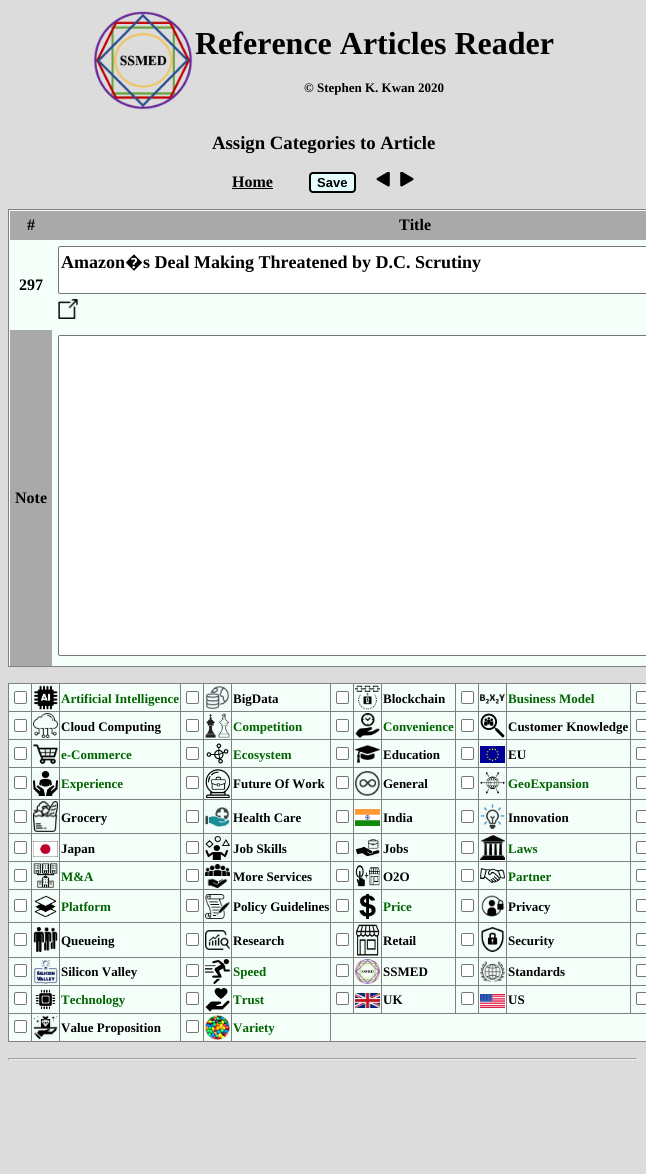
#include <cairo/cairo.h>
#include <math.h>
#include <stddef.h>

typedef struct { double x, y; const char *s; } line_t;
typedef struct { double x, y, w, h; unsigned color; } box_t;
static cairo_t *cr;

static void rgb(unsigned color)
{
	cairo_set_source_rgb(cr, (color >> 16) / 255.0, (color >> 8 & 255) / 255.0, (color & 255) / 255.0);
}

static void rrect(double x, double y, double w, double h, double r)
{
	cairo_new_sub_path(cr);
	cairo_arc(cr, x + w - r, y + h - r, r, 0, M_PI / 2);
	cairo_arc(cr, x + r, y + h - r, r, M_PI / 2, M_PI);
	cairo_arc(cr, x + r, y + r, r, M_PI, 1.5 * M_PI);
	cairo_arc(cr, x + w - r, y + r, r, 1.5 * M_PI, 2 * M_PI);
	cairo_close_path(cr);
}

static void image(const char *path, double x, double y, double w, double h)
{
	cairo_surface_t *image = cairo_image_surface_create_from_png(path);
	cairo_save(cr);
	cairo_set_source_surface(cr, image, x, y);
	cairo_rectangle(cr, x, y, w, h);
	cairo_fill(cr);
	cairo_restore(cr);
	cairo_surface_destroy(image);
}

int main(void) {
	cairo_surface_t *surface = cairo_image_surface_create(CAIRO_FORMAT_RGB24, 646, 1174);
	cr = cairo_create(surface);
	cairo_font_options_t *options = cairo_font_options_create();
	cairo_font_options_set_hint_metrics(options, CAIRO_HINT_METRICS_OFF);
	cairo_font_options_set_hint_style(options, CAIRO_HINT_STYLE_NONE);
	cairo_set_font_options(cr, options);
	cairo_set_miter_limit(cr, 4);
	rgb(0xdcdcdc);
	cairo_paint(cr);
	image("img/1.png", 93, 11, 100, 99);
	rgb(0x000000);
	cairo_rectangle(cr, 232, 188, 41, 1);
	cairo_fill(cr);
	rgb(0xe7feff);
	rrect(310, 173, 45, 19, 3);
	cairo_fill_preserve(cr);
	rgb(0x000000);
	cairo_stroke(cr);
	image("img/2.png", 376, 172, 14, 15);
	image("img/3.png", 400, 172, 14, 15);
	{
		static const box_t items[] = {
			{9, 210, 637, 456, 0xf5fffa},
			{8, 209, 638, 1, 0x808080},
			{8, 666, 638, 1, 0x808080},
			{8, 209, 1, 458, 0x808080},
			{10, 211, 636, 29, 0xa9a9a9},
		};
		for (size_t i = 0; i < sizeof items / sizeof *items; i++) {
			rgb(items[i].color);
			cairo_rectangle(cr, items[i].x, items[i].y, items[i].w, items[i].h);
			cairo_fill(cr);
		}
	}
	rgb(0xffffff);
	rrect(58.5, 246.5, 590, 47, 1.5);
	cairo_fill_preserve(cr);
	rgb(0x767676);
	cairo_set_line_width(cr, 1);
	cairo_stroke(cr);
	image("img/4.png", 58, 299, 20, 20);
	rgb(0xa9a9a9);
	cairo_rectangle(cr, 10, 330, 42, 336);
	cairo_fill(cr);
	rgb(0xffffff);
	rrect(58.5, 335.5, 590, 320, 1.5);
	cairo_fill_preserve(cr);
	rgb(0x767676);
	cairo_stroke(cr);
	{
		static const box_t items[] = {
			{9, 684, 637, 357, 0xf5fffa},
			{8, 683, 638, 1, 0x808080},
			{8, 1041, 638, 1, 0x808080},
			{8, 683, 1, 359, 0x808080},
		};
		for (size_t i = 0; i < sizeof items / sizeof *items; i++) {
			rgb(items[i].color);
			cairo_rectangle(cr, items[i].x, items[i].y, items[i].w, items[i].h);
			cairo_fill(cr);
		}
	}
	rgb(0xffffff);
	rrect(14.5, 691.5, 12, 12, 1.5);
	cairo_fill_preserve(cr);
	rgb(0x767676);
	cairo_stroke(cr);
	{
		static const box_t items[] = {
			{630, 711, 16, 1, 0x808080},
			{630, 739, 16, 1, 0x808080},
			{630, 767, 16, 1, 0x808080},
			{630, 799, 16, 1, 0x808080},
			{630, 833, 16, 1, 0x808080},
			{630, 861, 16, 1, 0x808080},
			{630, 889, 16, 1, 0x808080},
			{630, 922, 16, 1, 0x808080},
			{630, 957, 16, 1, 0x808080},
			{630, 985, 16, 1, 0x808080},
			{630, 1013, 16, 1, 0x808080},
			{630, 985, 1, 29, 0x808080},
			{506, 985, 125, 1, 0x808080},
			{630, 957, 1, 29, 0x808080},
			{506, 957, 125, 1, 0x808080},
			{630, 922, 1, 36, 0x808080},
			{506, 922, 125, 1, 0x808080},
			{630, 889, 1, 34, 0x808080},
			{506, 889, 125, 1, 0x808080},
			{630, 861, 1, 29, 0x808080},
			{506, 861, 125, 1, 0x808080},
			{630, 833, 1, 29, 0x808080},
			{506, 833, 125, 1, 0x808080},
			{630, 799, 1, 35, 0x808080},
			{506, 799, 125, 1, 0x808080},
			{630, 767, 1, 33, 0x808080},
			{506, 767, 125, 1, 0x808080},
			{630, 739, 1, 29, 0x808080},
			{506, 739, 125, 1, 0x808080},
			{630, 711, 1, 29, 0x808080},
			{506, 711, 125, 1, 0x808080},
			{506, 1013, 125, 1, 0x808080},
			{506, 985, 1, 29, 0x808080},
			{478, 985, 29, 1, 0x808080},
			{506, 957, 1, 29, 0x808080},
			{478, 957, 29, 1, 0x808080},
			{506, 922, 1, 36, 0x808080},
			{478, 922, 29, 1, 0x808080},
			{506, 889, 1, 34, 0x808080},
			{478, 889, 29, 1, 0x808080},
			{506, 861, 1, 29, 0x808080},
			{478, 861, 29, 1, 0x808080},
			{506, 833, 1, 29, 0x808080},
			{478, 833, 29, 1, 0x808080},
			{506, 799, 1, 35, 0x808080},
			{478, 799, 29, 1, 0x808080},
			{506, 767, 1, 33, 0x808080},
			{478, 767, 29, 1, 0x808080},
			{506, 739, 1, 29, 0x808080},
			{478, 739, 29, 1, 0x808080},
			{506, 711, 1, 29, 0x808080},
			{478, 711, 29, 1, 0x808080},
			{478, 1013, 29, 1, 0x808080},
			{478, 985, 1, 29, 0x808080},
			{455, 985, 24, 1, 0x808080},
			{478, 957, 1, 29, 0x808080},
			{455, 957, 24, 1, 0x808080},
			{478, 922, 1, 36, 0x808080},
			{455, 922, 24, 1, 0x808080},
			{478, 889, 1, 34, 0x808080},
			{455, 889, 24, 1, 0x808080},
			{478, 861, 1, 29, 0x808080},
			{455, 861, 24, 1, 0x808080},
			{478, 833, 1, 29, 0x808080},
			{455, 833, 24, 1, 0x808080},
			{478, 799, 1, 35, 0x808080},
			{455, 799, 24, 1, 0x808080},
			{478, 767, 1, 33, 0x808080},
			{455, 767, 24, 1, 0x808080},
			{478, 739, 1, 29, 0x808080},
			{455, 739, 24, 1, 0x808080},
			{478, 711, 1, 29, 0x808080},
			{455, 711, 24, 1, 0x808080},
			{455, 1013, 24, 1, 0x808080},
			{455, 985, 1, 29, 0x808080},
			{381, 985, 75, 1, 0x808080},
			{455, 957, 1, 29, 0x808080},
			{381, 957, 75, 1, 0x808080},
			{455, 922, 1, 36, 0x808080},
			{381, 922, 75, 1, 0x808080},
			{455, 889, 1, 34, 0x808080},
			{381, 889, 75, 1, 0x808080},
			{455, 861, 1, 29, 0x808080},
			{381, 861, 75, 1, 0x808080},
			{455, 833, 1, 29, 0x808080},
			{381, 833, 75, 1, 0x808080},
			{455, 799, 1, 35, 0x808080},
			{381, 799, 75, 1, 0x808080},
			{455, 767, 1, 33, 0x808080},
			{381, 767, 75, 1, 0x808080},
			{455, 739, 1, 29, 0x808080},
			{381, 739, 75, 1, 0x808080},
			{455, 711, 1, 29, 0x808080},
			{381, 711, 75, 1, 0x808080},
			{381, 1013, 75, 1, 0x808080},
			{381, 985, 1, 29, 0x808080},
			{353, 985, 29, 1, 0x808080},
			{381, 957, 1, 29, 0x808080},
			{353, 957, 29, 1, 0x808080},
			{381, 922, 1, 36, 0x808080},
			{353, 922, 29, 1, 0x808080},
			{381, 889, 1, 34, 0x808080},
			{353, 889, 29, 1, 0x808080},
			{381, 861, 1, 29, 0x808080},
			{353, 861, 29, 1, 0x808080},
			{381, 833, 1, 29, 0x808080},
			{353, 833, 29, 1, 0x808080},
			{381, 799, 1, 35, 0x808080},
			{353, 799, 29, 1, 0x808080},
			{381, 767, 1, 33, 0x808080},
			{353, 767, 29, 1, 0x808080},
			{381, 739, 1, 29, 0x808080},
			{353, 739, 29, 1, 0x808080},
			{381, 711, 1, 29, 0x808080},
			{353, 711, 29, 1, 0x808080},
			{353, 1013, 29, 1, 0x808080},
			{353, 985, 1, 29, 0x808080},
			{330, 985, 24, 1, 0x808080},
			{353, 957, 1, 29, 0x808080},
			{330, 957, 24, 1, 0x808080},
			{353, 922, 1, 36, 0x808080},
			{330, 922, 24, 1, 0x808080},
			{353, 889, 1, 34, 0x808080},
			{330, 889, 24, 1, 0x808080},
			{353, 861, 1, 29, 0x808080},
			{330, 861, 24, 1, 0x808080},
			{353, 833, 1, 29, 0x808080},
			{330, 833, 24, 1, 0x808080},
			{353, 799, 1, 35, 0x808080},
			{330, 799, 24, 1, 0x808080},
			{353, 767, 1, 33, 0x808080},
			{330, 767, 24, 1, 0x808080},
			{353, 739, 1, 29, 0x808080},
			{330, 739, 24, 1, 0x808080},
			{353, 711, 1, 29, 0x808080},
			{330, 711, 24, 1, 0x808080},
			{231, 1013, 100, 1, 0x808080},
			{330, 1013, 1, 29, 0x808080},
			{330, 1013, 24, 1, 0x808080},
			{330, 985, 1, 29, 0x808080},
			{231, 985, 100, 1, 0x808080},
			{330, 957, 1, 29, 0x808080},
			{231, 957, 100, 1, 0x808080},
			{330, 922, 1, 36, 0x808080},
			{231, 922, 100, 1, 0x808080},
			{330, 889, 1, 34, 0x808080},
			{231, 889, 100, 1, 0x808080},
			{330, 861, 1, 29, 0x808080},
			{231, 861, 100, 1, 0x808080},
			{330, 833, 1, 29, 0x808080},
			{231, 833, 100, 1, 0x808080},
			{330, 799, 1, 35, 0x808080},
			{231, 799, 100, 1, 0x808080},
			{330, 767, 1, 33, 0x808080},
			{231, 767, 100, 1, 0x808080},
			{330, 739, 1, 29, 0x808080},
			{231, 739, 100, 1, 0x808080},
			{330, 711, 1, 29, 0x808080},
			{231, 711, 100, 1, 0x808080},
			{231, 1013, 1, 29, 0x808080},
			{203, 1013, 29, 1, 0x808080},
			{231, 985, 1, 29, 0x808080},
			{203, 985, 29, 1, 0x808080},
			{231, 957, 1, 29, 0x808080},
			{203, 957, 29, 1, 0x808080},
			{231, 922, 1, 36, 0x808080},
			{203, 922, 29, 1, 0x808080},
			{231, 889, 1, 34, 0x808080},
			{203, 889, 29, 1, 0x808080},
			{231, 861, 1, 29, 0x808080},
			{203, 861, 29, 1, 0x808080},
			{231, 833, 1, 29, 0x808080},
			{203, 833, 29, 1, 0x808080},
			{231, 799, 1, 35, 0x808080},
			{203, 799, 29, 1, 0x808080},
			{231, 767, 1, 33, 0x808080},
			{203, 767, 29, 1, 0x808080},
			{231, 739, 1, 29, 0x808080},
			{203, 739, 29, 1, 0x808080},
			{231, 711, 1, 29, 0x808080},
			{203, 711, 29, 1, 0x808080},
			{203, 1013, 1, 29, 0x808080},
			{180, 1013, 24, 1, 0x808080},
			{203, 985, 1, 29, 0x808080},
			{180, 985, 24, 1, 0x808080},
			{203, 957, 1, 29, 0x808080},
			{180, 957, 24, 1, 0x808080},
			{203, 922, 1, 36, 0x808080},
			{180, 922, 24, 1, 0x808080},
			{203, 889, 1, 34, 0x808080},
			{180, 889, 24, 1, 0x808080},
			{203, 861, 1, 29, 0x808080},
			{180, 861, 24, 1, 0x808080},
			{203, 833, 1, 29, 0x808080},
			{180, 833, 24, 1, 0x808080},
			{203, 799, 1, 35, 0x808080},
			{180, 799, 24, 1, 0x808080},
			{203, 767, 1, 33, 0x808080},
			{180, 767, 24, 1, 0x808080},
			{203, 739, 1, 29, 0x808080},
			{180, 739, 24, 1, 0x808080},
			{203, 711, 1, 29, 0x808080},
			{180, 711, 24, 1, 0x808080},
			{180, 1013, 1, 29, 0x808080},
			{59, 1013, 122, 1, 0x808080},
			{180, 985, 1, 29, 0x808080},
			{59, 985, 122, 1, 0x808080},
			{180, 957, 1, 29, 0x808080},
			{59, 957, 122, 1, 0x808080},
			{180, 922, 1, 36, 0x808080},
			{59, 922, 122, 1, 0x808080},
			{180, 889, 1, 34, 0x808080},
			{59, 889, 122, 1, 0x808080},
			{180, 861, 1, 29, 0x808080},
			{59, 861, 122, 1, 0x808080},
			{180, 833, 1, 29, 0x808080},
			{59, 833, 122, 1, 0x808080},
			{180, 799, 1, 35, 0x808080},
			{59, 799, 122, 1, 0x808080},
			{180, 767, 1, 33, 0x808080},
			{59, 767, 122, 1, 0x808080},
			{180, 739, 1, 29, 0x808080},
			{59, 739, 122, 1, 0x808080},
			{180, 711, 1, 29, 0x808080},
			{59, 711, 122, 1, 0x808080},
			{59, 1013, 1, 29, 0x808080},
			{31, 1013, 29, 1, 0x808080},
			{59, 985, 1, 29, 0x808080},
			{31, 985, 29, 1, 0x808080},
			{59, 957, 1, 29, 0x808080},
			{31, 957, 29, 1, 0x808080},
			{59, 922, 1, 36, 0x808080},
			{31, 922, 29, 1, 0x808080},
			{59, 889, 1, 34, 0x808080},
			{31, 889, 29, 1, 0x808080},
			{59, 861, 1, 29, 0x808080},
			{31, 861, 29, 1, 0x808080},
			{59, 833, 1, 29, 0x808080},
			{31, 833, 29, 1, 0x808080},
			{59, 799, 1, 35, 0x808080},
			{31, 799, 29, 1, 0x808080},
			{59, 767, 1, 33, 0x808080},
			{31, 767, 29, 1, 0x808080},
			{59, 739, 1, 29, 0x808080},
			{31, 739, 29, 1, 0x808080},
			{59, 711, 1, 29, 0x808080},
			{31, 711, 29, 1, 0x808080},
			{31, 1013, 1, 29, 0x808080},
			{8, 1013, 24, 1, 0x808080},
			{31, 985, 1, 29, 0x808080},
			{8, 985, 24, 1, 0x808080},
			{31, 957, 1, 29, 0x808080},
			{8, 957, 24, 1, 0x808080},
			{31, 922, 1, 36, 0x808080},
			{8, 922, 24, 1, 0x808080},
			{31, 889, 1, 34, 0x808080},
			{8, 889, 24, 1, 0x808080},
			{31, 861, 1, 29, 0x808080},
			{8, 861, 24, 1, 0x808080},
			{31, 833, 1, 29, 0x808080},
			{8, 833, 24, 1, 0x808080},
			{31, 799, 1, 35, 0x808080},
			{8, 799, 24, 1, 0x808080},
			{31, 767, 1, 33, 0x808080},
			{8, 767, 24, 1, 0x808080},
			{31, 739, 1, 29, 0x808080},
			{8, 739, 24, 1, 0x808080},
			{31, 711, 1, 29, 0x808080},
			{8, 711, 24, 1, 0x808080},
			{31, 683, 1, 29, 0x808080},
		};
		for (size_t i = 0; i < sizeof items / sizeof *items; i++) {
			rgb(items[i].color);
			cairo_rectangle(cr, items[i].x, items[i].y, items[i].w, items[i].h);
			cairo_fill(cr);
		}
	}
	image("img/5.png", 34, 685, 24, 25);
	cairo_rectangle(cr, 59, 683, 1, 29);
	cairo_fill(cr);
	cairo_rectangle(cr, 180, 683, 1, 29);
	cairo_fill(cr);
	rgb(0xffffff);
	rrect(186.5, 691.5, 12, 12, 1.5);
	cairo_fill_preserve(cr);
	rgb(0x767676);
	cairo_stroke(cr);
	rgb(0x808080);
	cairo_rectangle(cr, 203, 683, 1, 29);
	cairo_fill(cr);
	image("img/6.png", 205, 685, 25, 25);
	cairo_rectangle(cr, 231, 683, 1, 29);
	cairo_fill(cr);
	cairo_rectangle(cr, 330, 683, 1, 29);
	cairo_fill(cr);
	rgb(0xffffff);
	rrect(336.5, 691.5, 12, 12, 1.5);
	cairo_fill_preserve(cr);
	rgb(0x767676);
	cairo_stroke(cr);
	rgb(0x808080);
	cairo_rectangle(cr, 353, 683, 1, 29);
	cairo_fill(cr);
	image("img/7.png", 355, 685, 25, 25);
	cairo_rectangle(cr, 381, 683, 1, 29);
	cairo_fill(cr);
	cairo_rectangle(cr, 455, 683, 1, 29);
	cairo_fill(cr);
	rgb(0xffffff);
	rrect(461.5, 691.5, 12, 12, 1.5);
	cairo_fill_preserve(cr);
	rgb(0x767676);
	cairo_stroke(cr);
	rgb(0x808080);
	cairo_rectangle(cr, 478, 683, 1, 29);
	cairo_fill(cr);
	image("img/8.png", 480, 694, 25, 10);
	cairo_rectangle(cr, 506, 683, 1, 29);
	cairo_fill(cr);
	cairo_rectangle(cr, 630, 683, 1, 29);
	cairo_fill(cr);
	rgb(0xffffff);
	rrect(636.5, 691.5, 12, 12, 1.5);
	cairo_fill_preserve(cr);
	rgb(0x767676);
	cairo_stroke(cr);
	rgb(0xffffff);
	rrect(14.5, 719.5, 12, 12, 1.5);
	cairo_fill_preserve(cr);
	rgb(0x767676);
	cairo_stroke(cr);
	image("img/9.png", 33, 713, 25, 25);
	rgb(0xffffff);
	rrect(186.5, 719.5, 12, 12, 1.5);
	cairo_fill_preserve(cr);
	rgb(0x767676);
	cairo_stroke(cr);
	image("img/10.png", 205, 713, 25, 25);
	rgb(0xffffff);
	rrect(336.5, 719.5, 12, 12, 1.5);
	cairo_fill_preserve(cr);
	rgb(0x767676);
	cairo_stroke(cr);
	image("img/11.png", 355, 713, 25, 25);
	rgb(0xffffff);
	rrect(461.5, 719.5, 12, 12, 1.5);
	cairo_fill_preserve(cr);
	rgb(0x767676);
	cairo_stroke(cr);
	image("img/12.png", 480, 713, 25, 25);
	rgb(0xffffff);
	rrect(636.5, 719.5, 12, 12, 1.5);
	cairo_fill_preserve(cr);
	rgb(0x767676);
	cairo_stroke(cr);
	rgb(0xffffff);
	rrect(14.5, 747.5, 12, 12, 1.5);
	cairo_fill_preserve(cr);
	rgb(0x767676);
	cairo_stroke(cr);
	image("img/13.png", 33, 744, 25, 20);
	rgb(0xffffff);
	rrect(186.5, 747.5, 12, 12, 1.5);
	cairo_fill_preserve(cr);
	rgb(0x767676);
	cairo_stroke(cr);
	image("img/14.png", 206, 743, 23, 21);
	rgb(0xffffff);
	rrect(336.5, 747.5, 12, 12, 1.5);
	cairo_fill_preserve(cr);
	rgb(0x767676);
	cairo_stroke(cr);
	image("img/15.png", 355, 744, 25, 20);
	rgb(0xffffff);
	rrect(461.5, 747.5, 12, 12, 1.5);
	cairo_fill_preserve(cr);
	rgb(0x767676);
	cairo_stroke(cr);
	image("img/16.png", 480, 746, 25, 17);
	rgb(0xffffff);
	rrect(636.5, 747.5, 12, 12, 1.5);
	cairo_fill_preserve(cr);
	rgb(0x767676);
	cairo_stroke(cr);
	rgb(0xffffff);
	rrect(14.5, 776.5, 12, 12, 1.5);
	cairo_fill_preserve(cr);
	rgb(0x767676);
	cairo_stroke(cr);
	image("img/17.png", 33, 771, 25, 25);
	rgb(0xffffff);
	rrect(186.5, 776.5, 12, 12, 1.5);
	cairo_fill_preserve(cr);
	rgb(0x767676);
	cairo_stroke(cr);
	image("img/18.png", 205, 769, 25, 29);
	rgb(0xffffff);
	rrect(336.5, 776.5, 12, 12, 1.5);
	cairo_fill_preserve(cr);
	rgb(0x767676);
	cairo_stroke(cr);
	image("img/19.png", 355, 771, 25, 25);
	rgb(0xffffff);
	rrect(461.5, 776.5, 12, 12, 1.5);
	cairo_fill_preserve(cr);
	rgb(0x767676);
	cairo_stroke(cr);
	image("img/20.png", 480, 772, 25, 22);
	rgb(0xffffff);
	rrect(636.5, 776.5, 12, 12, 1.5);
	cairo_fill_preserve(cr);
	rgb(0x767676);
	cairo_stroke(cr);
	rgb(0xffffff);
	rrect(14.5, 810.5, 12, 12, 1.5);
	cairo_fill_preserve(cr);
	rgb(0x767676);
	cairo_stroke(cr);
	image("img/21.png", 33, 801, 25, 31);
	rgb(0xffffff);
	rrect(186.5, 810.5, 12, 12, 1.5);
	cairo_fill_preserve(cr);
	rgb(0x767676);
	cairo_stroke(cr);
	image("img/22.png", 205, 807, 25, 20);
	rgb(0xffffff);
	rrect(336.5, 810.5, 12, 12, 1.5);
	cairo_fill_preserve(cr);
	rgb(0x767676);
	cairo_stroke(cr);
	image("img/23.png", 355, 809, 25, 17);
	rgb(0xffffff);
	rrect(461.5, 810.5, 12, 12, 1.5);
	cairo_fill_preserve(cr);
	rgb(0x767676);
	cairo_stroke(cr);
	image("img/24.png", 480, 804, 25, 25);
	rgb(0xffffff);
	rrect(636.5, 810.5, 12, 12, 1.5);
	cairo_fill_preserve(cr);
	rgb(0x767676);
	cairo_stroke(cr);
	rgb(0xffffff);
	rrect(14.5, 841.5, 12, 12, 1.5);
	cairo_fill_preserve(cr);
	rgb(0x767676);
	cairo_stroke(cr);
	image("img/25.png", 33, 841, 25, 16);
	rgb(0xffffff);
	rrect(186.5, 841.5, 12, 12, 1.5);
	cairo_fill_preserve(cr);
	rgb(0x767676);
	cairo_stroke(cr);
	image("img/26.png", 205, 836, 25, 24);
	rgb(0xffffff);
	rrect(336.5, 841.5, 12, 12, 1.5);
	cairo_fill_preserve(cr);
	rgb(0x767676);
	cairo_stroke(cr);
	image("img/27.png", 355, 839, 25, 18);
	rgb(0xffffff);
	rrect(461.5, 841.5, 12, 12, 1.5);
	cairo_fill_preserve(cr);
	rgb(0x767676);
	cairo_stroke(cr);
	image("img/28.png", 480, 835, 25, 25);
	rgb(0xffffff);
	rrect(636.5, 841.5, 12, 12, 1.5);
	cairo_fill_preserve(cr);
	rgb(0x767676);
	cairo_stroke(cr);
	rgb(0xffffff);
	rrect(14.5, 869.5, 12, 12, 1.5);
	cairo_fill_preserve(cr);
	rgb(0x767676);
	cairo_stroke(cr);
	image("img/29.png", 33, 863, 25, 25);
	rgb(0xffffff);
	rrect(186.5, 869.5, 12, 12, 1.5);
	cairo_fill_preserve(cr);
	rgb(0x767676);
	cairo_stroke(cr);
	image("img/30.png", 205, 864, 25, 24);
	rgb(0xffffff);
	rrect(336.5, 869.5, 12, 12, 1.5);
	cairo_fill_preserve(cr);
	rgb(0x767676);
	cairo_stroke(cr);
	image("img/31.png", 355, 865, 25, 22);
	rgb(0xffffff);
	rrect(461.5, 869.5, 12, 12, 1.5);
	cairo_fill_preserve(cr);
	rgb(0x767676);
	cairo_stroke(cr);
	image("img/32.png", 480, 868, 25, 15);
	rgb(0xffffff);
	rrect(636.5, 869.5, 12, 12, 1.5);
	cairo_fill_preserve(cr);
	rgb(0x767676);
	cairo_stroke(cr);
	rgb(0xffffff);
	rrect(14.5, 899.5, 12, 12, 1.5);
	cairo_fill_preserve(cr);
	rgb(0x767676);
	cairo_stroke(cr);
	image("img/33.png", 34, 895, 23, 23);
	rgb(0xffffff);
	rrect(186.5, 899.5, 12, 12, 1.5);
	cairo_fill_preserve(cr);
	rgb(0x767676);
	cairo_stroke(cr);
	image("img/34.png", 205, 894, 25, 25);
	rgb(0xffffff);
	rrect(336.5, 899.5, 12, 12, 1.5);
	cairo_fill_preserve(cr);
	rgb(0x767676);
	cairo_stroke(cr);
	image("img/35.png", 359, 894, 17, 25);
	rgb(0xffffff);
	rrect(461.5, 899.5, 12, 12, 1.5);
	cairo_fill_preserve(cr);
	rgb(0x767676);
	cairo_stroke(cr);
	image("img/36.png", 481, 895, 24, 22);
	rgb(0xffffff);
	rrect(636.5, 899.5, 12, 12, 1.5);
	cairo_fill_preserve(cr);
	rgb(0x767676);
	cairo_stroke(cr);
	rgb(0xffffff);
	rrect(14.5, 933.5, 12, 12, 1.5);
	cairo_fill_preserve(cr);
	rgb(0x767676);
	cairo_stroke(cr);
	image("img/37.png", 33, 927, 25, 25);
	rgb(0xffffff);
	rrect(186.5, 933.5, 12, 12, 1.5);
	cairo_fill_preserve(cr);
	rgb(0x767676);
	cairo_stroke(cr);
	image("img/38.png", 205, 930, 25, 20);
	rgb(0xffffff);
	rrect(336.5, 933.5, 12, 12, 1.5);
	cairo_fill_preserve(cr);
	rgb(0x767676);
	cairo_stroke(cr);
	image("img/39.png", 356, 924, 24, 32);
	rgb(0xffffff);
	rrect(461.5, 933.5, 12, 12, 1.5);
	cairo_fill_preserve(cr);
	rgb(0x767676);
	cairo_stroke(cr);
	image("img/40.png", 480, 927, 25, 25);
	rgb(0xffffff);
	rrect(636.5, 933.5, 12, 12, 1.5);
	cairo_fill_preserve(cr);
	rgb(0x767676);
	cairo_stroke(cr);
	rgb(0xffffff);
	rrect(14.5, 964.5, 12, 12, 1.5);
	cairo_fill_preserve(cr);
	rgb(0x767676);
	cairo_stroke(cr);
	image("img/41.png", 33, 960, 25, 24);
	rgb(0xffffff);
	rrect(186.5, 964.5, 12, 12, 1.5);
	cairo_fill_preserve(cr);
	rgb(0x767676);
	cairo_stroke(cr);
	image("img/42.png", 205, 959, 25, 25);
	rgb(0xffffff);
	rrect(336.5, 964.5, 12, 12, 1.5);
	cairo_fill_preserve(cr);
	rgb(0x767676);
	cairo_stroke(cr);
	image("img/43.png", 355, 959, 25, 25);
	rgb(0xffffff);
	rrect(461.5, 964.5, 12, 12, 1.5);
	cairo_fill_preserve(cr);
	rgb(0x767676);
	cairo_stroke(cr);
	image("img/44.png", 480, 961, 25, 21);
	rgb(0xffffff);
	rrect(636.5, 964.5, 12, 12, 1.5);
	cairo_fill_preserve(cr);
	rgb(0x767676);
	cairo_stroke(cr);
	rgb(0xffffff);
	rrect(14.5, 992.5, 12, 12, 1.5);
	cairo_fill_preserve(cr);
	rgb(0x767676);
	cairo_stroke(cr);
	image("img/45.png", 35, 989, 21, 21);
	rgb(0xffffff);
	rrect(186.5, 992.5, 12, 12, 1.5);
	cairo_fill_preserve(cr);
	rgb(0x767676);
	cairo_stroke(cr);
	image("img/46.png", 205, 987, 25, 25);
	rgb(0xffffff);
	rrect(336.5, 992.5, 12, 12, 1.5);
	cairo_fill_preserve(cr);
	rgb(0x767676);
	cairo_stroke(cr);
	image("img/47.png", 355, 993, 25, 15);
	rgb(0xffffff);
	rrect(461.5, 992.5, 12, 12, 1.5);
	cairo_fill_preserve(cr);
	rgb(0x767676);
	cairo_stroke(cr);
	image("img/48.png", 480, 994, 25, 14);
	rgb(0xffffff);
	rrect(636.5, 992.5, 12, 12, 1.5);
	cairo_fill_preserve(cr);
	rgb(0x767676);
	cairo_stroke(cr);
	rgb(0xffffff);
	rrect(14.5, 1020.5, 12, 12, 1.5);
	cairo_fill_preserve(cr);
	rgb(0x767676);
	cairo_stroke(cr);
	image("img/49.png", 33, 1015, 25, 25);
	rgb(0xffffff);
	rrect(186.5, 1020.5, 12, 12, 1.5);
	cairo_fill_preserve(cr);
	rgb(0x767676);
	cairo_stroke(cr);
	image("img/50.png", 205, 1015, 25, 25);
	{
		static const box_t items[] = {
			{8, 1058, 630, 1, 0x9f9f9f},
			{637, 1058, 1, 2, 0xeeeeee},
			{8, 1059, 630, 1, 0xeeeeee},
			{8, 1058, 1, 2, 0x9f9f9f},
		};
		for (size_t i = 0; i < sizeof items / sizeof *items; i++) {
			rgb(items[i].color);
			cairo_rectangle(cr, items[i].x, items[i].y, items[i].w, items[i].h);
			cairo_fill(cr);
		}
	}
	cairo_select_font_face(cr, "Liberation Serif", CAIRO_FONT_SLANT_NORMAL, CAIRO_FONT_WEIGHT_BOLD);
	cairo_set_font_size(cr, 32);
	rgb(0x000000);
	cairo_move_to(cr, 195, 54);
	cairo_show_text(cr, "Reference Articles Reader");
	cairo_set_font_size(cr, 13);
	cairo_move_to(cr, 304, 92);
	cairo_show_text(cr, "© Stephen K. Kwan 2020");
	cairo_set_font_size(cr, 18.75);
	cairo_move_to(cr, 212, 149);
	cairo_show_text(cr, "Assign Categories to Article");
	cairo_set_font_size(cr, 16);
	cairo_move_to(cr, 232, 187);
	cairo_show_text(cr, "Home");
	cairo_select_font_face(cr, "Liberation Sans", CAIRO_FONT_SLANT_NORMAL, CAIRO_FONT_WEIGHT_BOLD);
	cairo_set_font_size(cr, 13);
	cairo_move_to(cr, 317, 187);
	cairo_show_text(cr, "Save");
	cairo_select_font_face(cr, "Liberation Serif", CAIRO_FONT_SLANT_NORMAL, CAIRO_FONT_WEIGHT_BOLD);
	cairo_set_font_size(cr, 16);
	cairo_move_to(cr, 27, 230);
	cairo_show_text(cr, "#");
	cairo_move_to(cr, 399, 230);
	cairo_show_text(cr, "Title");
	cairo_set_font_size(cr, 18);
	cairo_move_to(cr, 61, 268);
	cairo_show_text(cr, "Amazon");
	cairo_select_font_face(cr, "Noto Sans", CAIRO_FONT_SLANT_NORMAL, CAIRO_FONT_WEIGHT_BOLD);
	cairo_move_to(cr, 125, 268);
	cairo_show_text(cr, "�");
	cairo_select_font_face(cr, "Liberation Serif", CAIRO_FONT_SLANT_NORMAL, CAIRO_FONT_WEIGHT_BOLD);
	cairo_move_to(cr, 143, 268);
	cairo_show_text(cr, "s Deal Making Threatened by D.C. Scrutiny");
	cairo_set_font_size(cr, 16);
	cairo_move_to(cr, 19, 290);
	cairo_show_text(cr, "297");
	cairo_move_to(cr, 15, 503);
	cairo_show_text(cr, "Note");
	cairo_set_font_size(cr, 13);
	rgb(0x006400);
	cairo_move_to(cr, 61, 703);
	cairo_show_text(cr, "Artificial Intelligence");
	rgb(0x000000);
	cairo_move_to(cr, 233, 703);
	cairo_show_text(cr, "BigData");
	cairo_move_to(cr, 383, 703);
	cairo_show_text(cr, "Blockchain");
	rgb(0x006400);
	cairo_move_to(cr, 508, 703);
	cairo_show_text(cr, "Business Model");
	rgb(0x000000);
	cairo_move_to(cr, 61, 731);
	cairo_show_text(cr, "Cloud Computing");
	rgb(0x006400);
	cairo_move_to(cr, 233, 731);
	cairo_show_text(cr, "Competition");
	cairo_move_to(cr, 383, 731);
	cairo_show_text(cr, "Convenience");
	rgb(0x000000);
	cairo_move_to(cr, 508, 731);
	cairo_show_text(cr, "Customer Knowledge");
	rgb(0x006400);
	cairo_move_to(cr, 61, 759);
	cairo_show_text(cr, "e-Commerce");
	cairo_move_to(cr, 233, 759);
	cairo_show_text(cr, "Ecosystem");
	rgb(0x000000);
	cairo_move_to(cr, 383, 759);
	cairo_show_text(cr, "Education");
	cairo_move_to(cr, 508, 759);
	cairo_show_text(cr, "EU");
	rgb(0x006400);
	cairo_move_to(cr, 61, 788);
	cairo_show_text(cr, "Experience");
	rgb(0x000000);
	cairo_move_to(cr, 233, 788);
	cairo_show_text(cr, "Future Of Work");
	cairo_move_to(cr, 383, 788);
	cairo_show_text(cr, "General");
	rgb(0x006400);
	cairo_move_to(cr, 508, 788);
	cairo_show_text(cr, "GeoExpansion");
	rgb(0x000000);
	{
		static const line_t items[] = {
			{61, 822, "Grocery"},
			{233, 822, "Health Care"},
			{383, 822, "India"},
			{508, 822, "Innovation"},
			{61, 853, "Japan"},
			{233, 853, "Job Skills"},
			{383, 853, "Jobs"},
		};
		for (size_t i = 0; i < sizeof items / sizeof *items; i++) {
			cairo_move_to(cr, items[i].x, items[i].y);
			cairo_show_text(cr, items[i].s);
		}
	}
	rgb(0x006400);
	cairo_move_to(cr, 508, 853);
	cairo_show_text(cr, "Laws");
	cairo_move_to(cr, 61, 881);
	cairo_show_text(cr, "M&A");
	rgb(0x000000);
	cairo_move_to(cr, 233, 881);
	cairo_show_text(cr, "More Services");
	cairo_move_to(cr, 383, 881);
	cairo_show_text(cr, "O2O");
	rgb(0x006400);
	cairo_move_to(cr, 508, 881);
	cairo_show_text(cr, "Partner");
	cairo_move_to(cr, 61, 911);
	cairo_show_text(cr, "Platform");
	rgb(0x000000);
	cairo_move_to(cr, 233, 911);
	cairo_show_text(cr, "Policy Guidelines");
	rgb(0x006400);
	cairo_move_to(cr, 383, 911);
	cairo_show_text(cr, "Price");
	rgb(0x000000);
	{
		static const line_t items[] = {
			{508, 911, "Privacy"},
			{61, 945, "Queueing"},
			{233, 945, "Research"},
			{383, 945, "Retail"},
			{508, 945, "Security"},
			{61, 976, "Silicon Valley"},
		};
		for (size_t i = 0; i < sizeof items / sizeof *items; i++) {
			cairo_move_to(cr, items[i].x, items[i].y);
			cairo_show_text(cr, items[i].s);
		}
	}
	rgb(0x006400);
	cairo_move_to(cr, 233, 976);
	cairo_show_text(cr, "Speed");
	rgb(0x000000);
	cairo_move_to(cr, 383, 976);
	cairo_show_text(cr, "SSMED");
	cairo_move_to(cr, 508, 976);
	cairo_show_text(cr, "Standards");
	rgb(0x006400);
	cairo_move_to(cr, 61, 1004);
	cairo_show_text(cr, "Technology");
	cairo_move_to(cr, 233, 1004);
	cairo_show_text(cr, "Trust");
	rgb(0x000000);
	{
		static const line_t items[] = {
			{383, 1004, "UK"},
			{508, 1004, "US"},
			{61, 1032, "Value Proposition"},
		};
		for (size_t i = 0; i < sizeof items / sizeof *items; i++) {
			cairo_move_to(cr, items[i].x, items[i].y);
			cairo_show_text(cr, items[i].s);
		}
	}
	rgb(0x006400);
	cairo_move_to(cr, 233, 1032);
	cairo_show_text(cr, "Variety");
	cairo_surface_write_to_png(surface, "page.png");
	cairo_font_options_destroy(options);
	cairo_destroy(cr);
	cairo_surface_destroy(surface);
	return 0;
}
